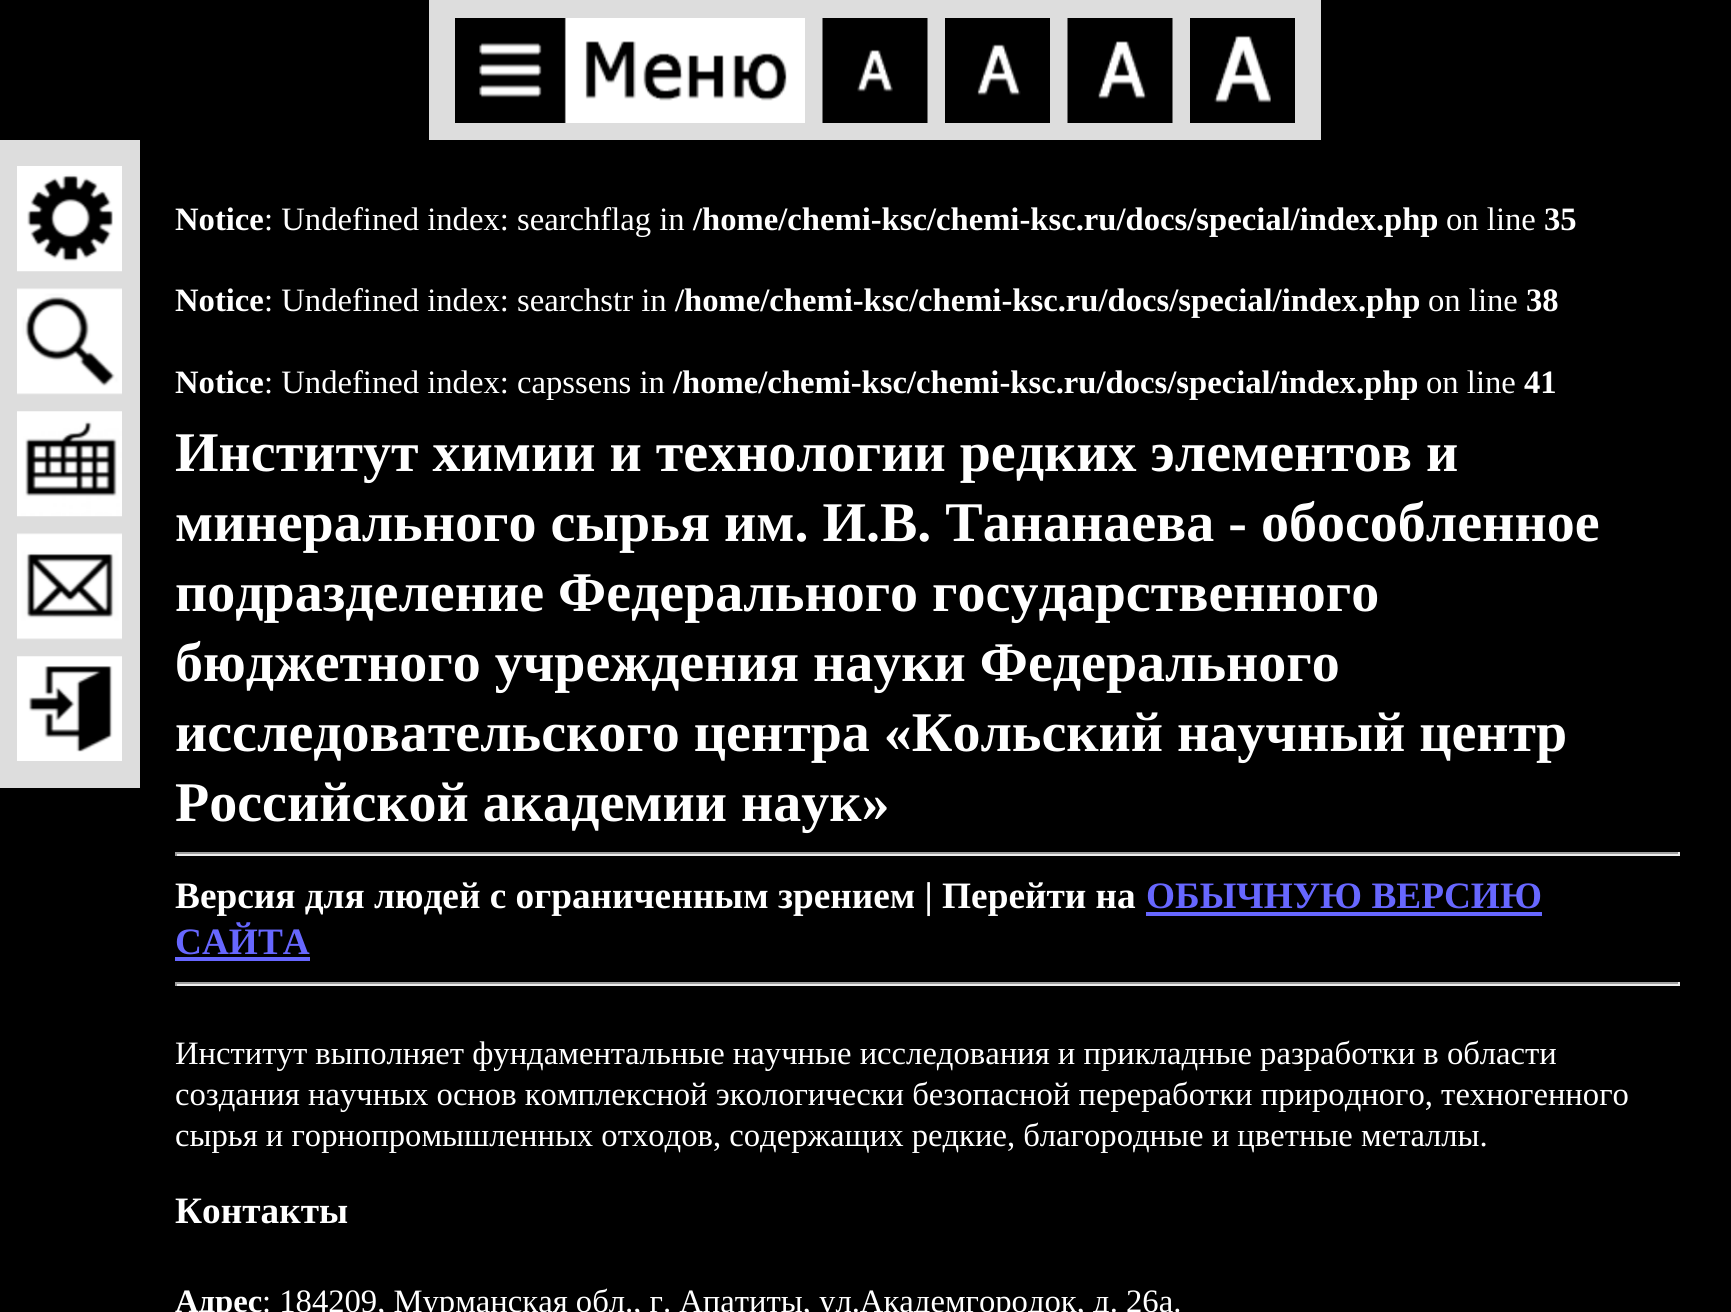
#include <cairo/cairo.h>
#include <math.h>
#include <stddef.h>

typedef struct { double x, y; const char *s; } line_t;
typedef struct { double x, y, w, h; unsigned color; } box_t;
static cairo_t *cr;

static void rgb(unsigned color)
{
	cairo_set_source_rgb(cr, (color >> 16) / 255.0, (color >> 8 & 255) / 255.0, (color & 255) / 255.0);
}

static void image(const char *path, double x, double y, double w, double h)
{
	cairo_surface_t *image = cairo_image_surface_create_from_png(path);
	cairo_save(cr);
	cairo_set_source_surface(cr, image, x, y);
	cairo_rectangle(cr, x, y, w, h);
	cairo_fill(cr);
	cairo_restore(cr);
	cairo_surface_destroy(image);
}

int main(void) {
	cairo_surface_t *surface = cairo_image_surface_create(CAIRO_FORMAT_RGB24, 1731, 1312);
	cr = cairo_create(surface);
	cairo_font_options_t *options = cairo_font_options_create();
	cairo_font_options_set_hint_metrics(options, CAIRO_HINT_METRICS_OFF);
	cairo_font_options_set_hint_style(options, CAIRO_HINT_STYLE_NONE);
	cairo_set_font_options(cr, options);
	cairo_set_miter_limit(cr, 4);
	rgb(0x000000);
	cairo_paint(cr);
	rgb(0xdddddd);
	cairo_rectangle(cr, 429, 0, 892, 140);
	cairo_fill(cr);
	image("img/1.png", 455, 18, 350, 105);
	image("img/2.png", 822, 18, 106, 105);
	image("img/3.png", 945, 18, 105, 105);
	image("img/4.png", 1067, 18, 106, 105);
	image("img/5.png", 1190, 18, 105, 105);
	cairo_rectangle(cr, 0, 140, 140, 648);
	cairo_fill(cr);
	image("img/6.png", 17, 166, 105, 106);
	image("img/7.png", 17, 288, 105, 107);
	image("img/8.png", 17, 411, 105, 106);
	image("img/9.png", 17, 533, 105, 107);
	image("img/10.png", 17, 656, 105, 105);
	{
		static const box_t items[] = {
			{175, 852, 1505, 2, 0x9f9f9f},
			{1678, 852, 2, 4, 0xeeeeee},
			{175, 854, 1505, 2, 0xeeeeee},
			{175, 852, 2, 4, 0x9f9f9f},
			{1146, 912, 396, 4, 0x6767ff},
			{175, 957, 135, 4, 0x6767ff},
			{175, 982, 1505, 2, 0x9f9f9f},
			{1678, 982, 2, 4, 0xeeeeee},
			{175, 984, 1505, 2, 0xeeeeee},
			{175, 982, 2, 4, 0x9f9f9f},
		};
		for (size_t i = 0; i < sizeof items / sizeof *items; i++) {
			rgb(items[i].color);
			cairo_rectangle(cr, items[i].x, items[i].y, items[i].w, items[i].h);
			cairo_fill(cr);
		}
	}
	cairo_select_font_face(cr, "Liberation Serif", CAIRO_FONT_SLANT_NORMAL, CAIRO_FONT_WEIGHT_BOLD);
	cairo_set_font_size(cr, 32.65);
	rgb(0xffffff);
	cairo_move_to(cr, 175, 230);
	cairo_show_text(cr, "Notice");
	cairo_select_font_face(cr, "Liberation Serif", CAIRO_FONT_SLANT_NORMAL, CAIRO_FONT_WEIGHT_NORMAL);
	cairo_move_to(cr, 264, 230);
	cairo_show_text(cr, ": Undefined index: searchflag in");
	cairo_select_font_face(cr, "Liberation Serif", CAIRO_FONT_SLANT_NORMAL, CAIRO_FONT_WEIGHT_BOLD);
	cairo_move_to(cr, 693, 230);
	cairo_show_text(cr, "/home/chemi-ksc/chemi-ksc.ru/docs/special/index.php");
	cairo_select_font_face(cr, "Liberation Serif", CAIRO_FONT_SLANT_NORMAL, CAIRO_FONT_WEIGHT_NORMAL);
	cairo_move_to(cr, 1446, 230);
	cairo_show_text(cr, "on line");
	cairo_select_font_face(cr, "Liberation Serif", CAIRO_FONT_SLANT_NORMAL, CAIRO_FONT_WEIGHT_BOLD);
	cairo_move_to(cr, 1544, 230);
	cairo_show_text(cr, "35");
	cairo_move_to(cr, 175, 311);
	cairo_show_text(cr, "Notice");
	cairo_select_font_face(cr, "Liberation Serif", CAIRO_FONT_SLANT_NORMAL, CAIRO_FONT_WEIGHT_NORMAL);
	cairo_move_to(cr, 264, 311);
	cairo_show_text(cr, ": Undefined index: searchstr in");
	cairo_select_font_face(cr, "Liberation Serif", CAIRO_FONT_SLANT_NORMAL, CAIRO_FONT_WEIGHT_BOLD);
	cairo_move_to(cr, 675, 311);
	cairo_show_text(cr, "/home/chemi-ksc/chemi-ksc.ru/docs/special/index.php");
	cairo_select_font_face(cr, "Liberation Serif", CAIRO_FONT_SLANT_NORMAL, CAIRO_FONT_WEIGHT_NORMAL);
	cairo_move_to(cr, 1428, 311);
	cairo_show_text(cr, "on line");
	cairo_select_font_face(cr, "Liberation Serif", CAIRO_FONT_SLANT_NORMAL, CAIRO_FONT_WEIGHT_BOLD);
	cairo_move_to(cr, 1526, 311);
	cairo_show_text(cr, "38");
	cairo_move_to(cr, 175, 393);
	cairo_show_text(cr, "Notice");
	cairo_select_font_face(cr, "Liberation Serif", CAIRO_FONT_SLANT_NORMAL, CAIRO_FONT_WEIGHT_NORMAL);
	cairo_move_to(cr, 264, 393);
	cairo_show_text(cr, ": Undefined index: capssens in");
	cairo_select_font_face(cr, "Liberation Serif", CAIRO_FONT_SLANT_NORMAL, CAIRO_FONT_WEIGHT_BOLD);
	cairo_move_to(cr, 673, 393);
	cairo_show_text(cr, "/home/chemi-ksc/chemi-ksc.ru/docs/special/index.php");
	cairo_select_font_face(cr, "Liberation Serif", CAIRO_FONT_SLANT_NORMAL, CAIRO_FONT_WEIGHT_NORMAL);
	cairo_move_to(cr, 1426, 393);
	cairo_show_text(cr, "on line");
	cairo_select_font_face(cr, "Liberation Serif", CAIRO_FONT_SLANT_NORMAL, CAIRO_FONT_WEIGHT_BOLD);
	cairo_move_to(cr, 1524, 393);
	cairo_show_text(cr, "41");
	cairo_set_font_size(cr, 56);
	{
		static const line_t items[] = {
			{175, 471, "Институт химии и технологии редких элементов и"},
			{175, 541, "минерального сырья им. И.В. Тананаева - обособленное"},
			{175, 611, "подразделение Федерального государственного"},
			{175, 681, "бюджетного учреждения науки Федерального"},
			{175, 751, "исследовательского центра «Кольский научный центр"},
			{175, 821, "Российской академии наук»"},
		};
		for (size_t i = 0; i < sizeof items / sizeof *items; i++) {
			cairo_move_to(cr, items[i].x, items[i].y);
			cairo_show_text(cr, items[i].s);
		}
	}
	cairo_set_font_size(cr, 37.3);
	cairo_move_to(cr, 175, 908);
	cairo_show_text(cr, "Версия для людей с ограниченным зрением | Перейти на");
	rgb(0x6767ff);
	cairo_move_to(cr, 1146, 908);
	cairo_show_text(cr, "ОБЫЧНУЮ ВЕРСИЮ");
	cairo_move_to(cr, 175, 954);
	cairo_show_text(cr, "САЙТА");
	cairo_select_font_face(cr, "Liberation Serif", CAIRO_FONT_SLANT_NORMAL, CAIRO_FONT_WEIGHT_NORMAL);
	cairo_set_font_size(cr, 32.65);
	rgb(0xffffff);
	{
		static const line_t items[] = {
			{175, 1064, "Институт выполняет фундаментальные научные исследования и прикладные разработки в области"},
			{175, 1105, "создания научных основ комплексной экологически безопасной переработки природного, техногенного"},
			{175, 1146, "сырья и горнопромышленных отходов, содержащих редкие, благородные и цветные металлы."},
		};
		for (size_t i = 0; i < sizeof items / sizeof *items; i++) {
			cairo_move_to(cr, items[i].x, items[i].y);
			cairo_show_text(cr, items[i].s);
		}
	}
	cairo_select_font_face(cr, "Liberation Serif", CAIRO_FONT_SLANT_NORMAL, CAIRO_FONT_WEIGHT_BOLD);
	cairo_set_font_size(cr, 37.3);
	cairo_move_to(cr, 175, 1223);
	cairo_show_text(cr, "Контакты");
	cairo_set_font_size(cr, 32.65);
	cairo_move_to(cr, 175, 1312);
	cairo_show_text(cr, "Адрес");
	cairo_select_font_face(cr, "Liberation Serif", CAIRO_FONT_SLANT_NORMAL, CAIRO_FONT_WEIGHT_NORMAL);
	cairo_move_to(cr, 262, 1312);
	cairo_show_text(cr, ": 184209, Мурманская обл., г. Апатиты, ул.Академгородок, д. 26а.");
	cairo_surface_write_to_png(surface, "page.png");
	cairo_font_options_destroy(options);
	cairo_destroy(cr);
	cairo_surface_destroy(surface);
	return 0;
}
